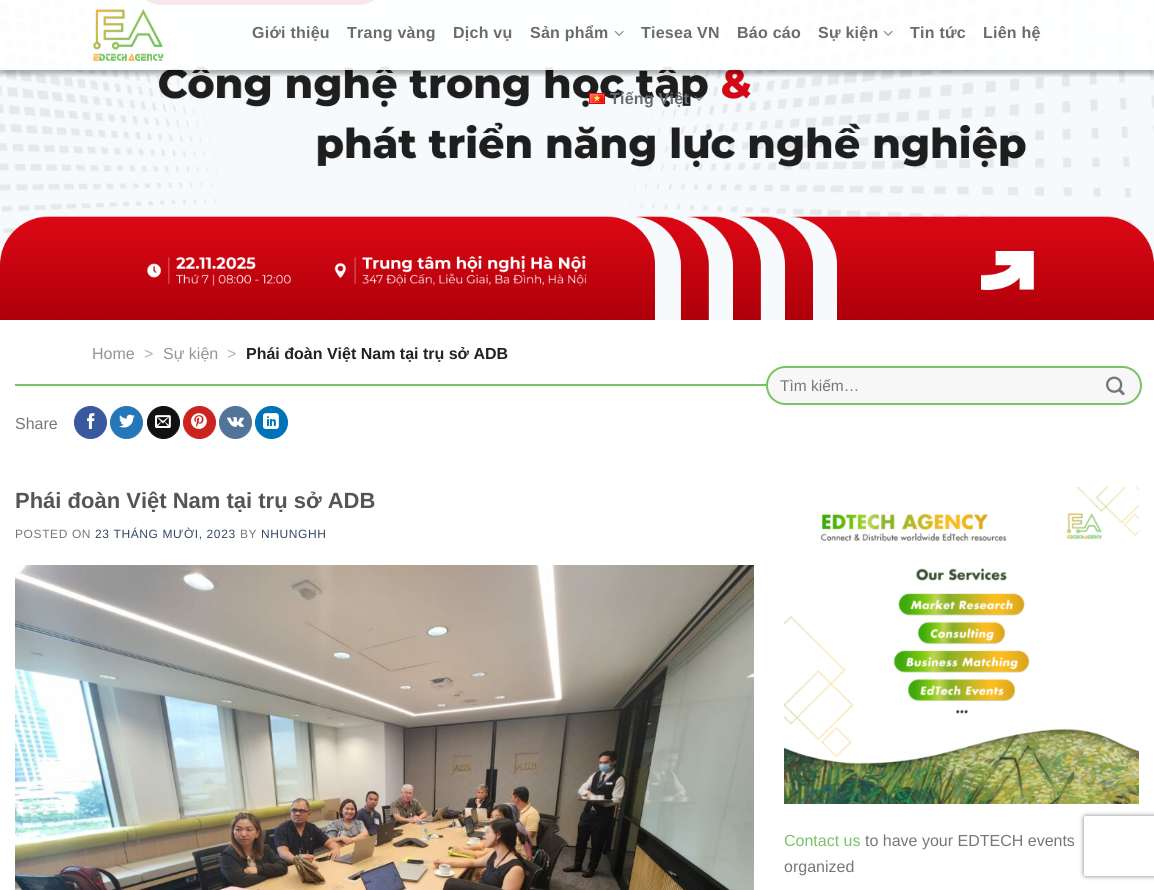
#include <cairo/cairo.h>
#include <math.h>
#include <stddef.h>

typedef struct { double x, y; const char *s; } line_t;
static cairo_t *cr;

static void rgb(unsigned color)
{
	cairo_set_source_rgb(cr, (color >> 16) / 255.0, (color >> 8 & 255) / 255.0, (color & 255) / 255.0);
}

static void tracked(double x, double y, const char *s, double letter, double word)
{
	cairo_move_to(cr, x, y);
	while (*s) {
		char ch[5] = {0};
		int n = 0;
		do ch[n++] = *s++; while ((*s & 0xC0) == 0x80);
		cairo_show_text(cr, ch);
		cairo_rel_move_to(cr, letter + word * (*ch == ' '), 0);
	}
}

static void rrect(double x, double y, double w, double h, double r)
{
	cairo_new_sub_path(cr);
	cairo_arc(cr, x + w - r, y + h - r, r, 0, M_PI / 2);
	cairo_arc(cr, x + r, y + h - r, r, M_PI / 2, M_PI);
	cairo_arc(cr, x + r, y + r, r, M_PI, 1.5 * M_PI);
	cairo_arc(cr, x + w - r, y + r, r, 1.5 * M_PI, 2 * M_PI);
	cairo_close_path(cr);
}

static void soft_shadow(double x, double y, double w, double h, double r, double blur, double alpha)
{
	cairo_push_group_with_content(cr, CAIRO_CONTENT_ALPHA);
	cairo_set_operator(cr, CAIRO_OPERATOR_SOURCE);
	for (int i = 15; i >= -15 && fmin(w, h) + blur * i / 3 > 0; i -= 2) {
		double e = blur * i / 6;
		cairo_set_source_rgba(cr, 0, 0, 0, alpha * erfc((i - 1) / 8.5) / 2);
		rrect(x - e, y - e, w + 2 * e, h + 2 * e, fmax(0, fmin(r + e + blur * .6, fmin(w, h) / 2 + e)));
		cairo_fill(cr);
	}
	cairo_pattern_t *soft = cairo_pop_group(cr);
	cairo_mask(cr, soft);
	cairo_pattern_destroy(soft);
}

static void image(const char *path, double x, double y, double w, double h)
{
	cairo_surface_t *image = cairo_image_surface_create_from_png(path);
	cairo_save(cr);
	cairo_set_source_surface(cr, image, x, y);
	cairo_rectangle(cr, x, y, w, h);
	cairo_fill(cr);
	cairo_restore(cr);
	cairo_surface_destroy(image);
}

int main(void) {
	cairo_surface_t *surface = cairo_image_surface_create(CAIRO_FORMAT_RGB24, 1154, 890);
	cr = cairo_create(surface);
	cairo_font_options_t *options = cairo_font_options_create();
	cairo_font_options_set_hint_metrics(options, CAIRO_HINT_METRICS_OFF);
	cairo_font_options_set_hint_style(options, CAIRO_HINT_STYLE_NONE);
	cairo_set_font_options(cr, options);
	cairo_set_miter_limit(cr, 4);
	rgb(0xffffff);
	cairo_paint(cr);
	image("img/6.png", 0, 0, 1154, 320);
	cairo_save(cr);
	cairo_rectangle(cr, 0, 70, 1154, 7);
	cairo_clip(cr);
	rgb(0x000000);
	soft_shadow(1, 1, 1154, 70, 0, 5, 0.15);
	cairo_restore(cr);
	cairo_set_source_rgba(cr, 1, 1, 1, 0.9);
	cairo_rectangle(cr, 0, 0, 1154, 70);
	cairo_fill(cr);
	cairo_save(cr);
	cairo_rectangle(cr, 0, 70, 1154, 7);
	cairo_clip(cr);
	rgb(0x000000);
	soft_shadow(0, 4, 1154, 70, 0, 2, 0.25);
	cairo_restore(cr);
	image("img/1.png", 93, 9, 71, 53);
	image("img/2.png", 614, 30, 10, 6);
	image("img/3.png", 883, 30, 10, 6);
	image("img/4.png", 589, 93, 16, 11);
	image("img/5.png", 694, 96, 10, 5);
	rgb(0x79c365);
	cairo_rectangle(cr, 15, 384, 751, 2);
	cairo_fill(cr);
	rgb(0xf7f7f7);
	rrect(767, 367, 374, 37, 18.5);
	cairo_fill_preserve(cr);
	rgb(0x79c365);
	cairo_stroke(cr);
	image("img/7.png", 1106, 376, 19, 20);
	rgb(0x3a589d);
	cairo_arc(cr, 90.5, 422.5, 16, 0, 2 * M_PI);
	cairo_fill_preserve(cr);
	cairo_set_line_width(cr, 1);
	cairo_stroke(cr);
	image("img/8.png", 86, 413, 9, 16);
	rgb(0x2478ba);
	cairo_arc(cr, 126.5, 422.5, 16, 0, 2 * M_PI);
	cairo_fill_preserve(cr);
	cairo_stroke(cr);
	image("img/9.png", 119, 414, 16, 14);
	rgb(0x111111);
	cairo_arc(cr, 163.5, 422.5, 16, 0, 2 * M_PI);
	cairo_fill_preserve(cr);
	cairo_stroke(cr);
	image("img/10.png", 155, 415, 16, 13);
	rgb(0xcb2320);
	cairo_arc(cr, 199.5, 422.5, 16, 0, 2 * M_PI);
	cairo_fill_preserve(cr);
	cairo_stroke(cr);
	image("img/11.png", 191, 413, 16, 16);
	rgb(0x527498);
	cairo_arc(cr, 235.5, 422.5, 16, 0, 2 * M_PI);
	cairo_fill_preserve(cr);
	cairo_stroke(cr);
	image("img/12.png", 227, 417, 17, 10);
	rgb(0x0072b7);
	cairo_arc(cr, 271.5, 422.5, 16, 0, 2 * M_PI);
	cairo_fill_preserve(cr);
	cairo_stroke(cr);
	image("img/13.png", 263, 413, 16, 16);
	image("img/14.png", 15, 565, 739, 325);
	image("img/15.png", 784, 487, 355, 317);
	cairo_save(cr);
	cairo_set_fill_rule(cr, CAIRO_FILL_RULE_EVEN_ODD);
	cairo_new_path(cr);
	cairo_move_to(cr, 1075, 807);
	cairo_line_to(cr, 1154, 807);
	cairo_line_to(cr, 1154, 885);
	cairo_line_to(cr, 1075, 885);
	cairo_close_path(cr);
	cairo_move_to(cr, 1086, 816);
	cairo_line_to(cr, 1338, 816);
	cairo_curve_to(cr, 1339, 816, 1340, 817, 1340, 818);
	cairo_line_to(cr, 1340, 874);
	cairo_curve_to(cr, 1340, 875, 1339, 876, 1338, 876);
	cairo_line_to(cr, 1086, 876);
	cairo_curve_to(cr, 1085, 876, 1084, 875, 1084, 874);
	cairo_line_to(cr, 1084, 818);
	cairo_curve_to(cr, 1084, 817, 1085, 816, 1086, 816);
	cairo_close_path(cr);
	cairo_clip(cr);
	rgb(0x808080);
	soft_shadow(1084, 816, 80, 60, 2, 2.5, 1);
	cairo_restore(cr);
	cairo_select_font_face(cr, "Liberation Sans", CAIRO_FONT_SLANT_NORMAL, CAIRO_FONT_WEIGHT_BOLD);
	cairo_set_font_size(cr, 16);
	rgb(0x6b6b6b);
	{
		static const line_t items[] = {
			{252, 38, "Giới thiệu"},
			{347, 38, "Trang vàng"},
			{453, 38, "Dịch vụ"},
			{530, 38, "Sản phẩm"},
			{641, 38, "Tiesea VN"},
			{737, 38, "Báo cáo"},
			{818, 38, "Sự kiện"},
			{910, 38, "Tin tức"},
			{983, 38, "Liên hệ"},
			{610, 104, "Tiếng Việt"},
		};
		for (size_t i = 0; i < sizeof items / sizeof *items; i++) {
			tracked(items[i].x, items[i].y, items[i].s, 0.25, 0);
		}
	}
	cairo_select_font_face(cr, "Liberation Sans", CAIRO_FONT_SLANT_NORMAL, CAIRO_FONT_WEIGHT_NORMAL);
	rgb(0x949494);
	cairo_move_to(cr, 92, 359);
	cairo_show_text(cr, "Home");
	rgb(0xb2b2b2);
	cairo_move_to(cr, 144, 359);
	cairo_show_text(cr, ">");
	rgb(0x949494);
	cairo_move_to(cr, 163, 359);
	cairo_show_text(cr, "Sự kiện");
	rgb(0xb2b2b2);
	cairo_move_to(cr, 227, 359);
	cairo_show_text(cr, ">");
	cairo_select_font_face(cr, "Liberation Sans", CAIRO_FONT_SLANT_NORMAL, CAIRO_FONT_WEIGHT_BOLD);
	rgb(0x222222);
	cairo_move_to(cr, 246, 359);
	cairo_show_text(cr, "Phái đoàn Việt Nam tại trụ sở ADB");
	cairo_select_font_face(cr, "Liberation Sans", CAIRO_FONT_SLANT_NORMAL, CAIRO_FONT_WEIGHT_NORMAL);
	cairo_set_font_size(cr, 15.5);
	rgb(0x777777);
	cairo_move_to(cr, 780, 391);
	cairo_show_text(cr, "Tìm kiếm…");
	cairo_set_font_size(cr, 16);
	cairo_move_to(cr, 15, 429);
	cairo_show_text(cr, "Share");
	cairo_select_font_face(cr, "Liberation Sans", CAIRO_FONT_SLANT_NORMAL, CAIRO_FONT_WEIGHT_BOLD);
	cairo_set_font_size(cr, 22);
	rgb(0x555555);
	cairo_move_to(cr, 15, 508);
	cairo_show_text(cr, "Phái đoàn Việt Nam tại trụ sở ADB");
	cairo_select_font_face(cr, "Liberation Sans", CAIRO_FONT_SLANT_NORMAL, CAIRO_FONT_WEIGHT_NORMAL);
	cairo_set_font_size(cr, 12);
	rgb(0x777777);
	tracked(15, 538, "POSTED ON", 0.6, 0);
	rgb(0x334862);
	tracked(95, 538, "23 THÁNG MƯỜI, 2023", 0.6, 0);
	rgb(0x777777);
	tracked(240, 538, "BY", 0.6, 0);
	rgb(0x334862);
	tracked(261, 538, "NHUNGHH", 0.6, 0);
	cairo_set_font_size(cr, 16);
	rgb(0x79c365);
	cairo_move_to(cr, 784, 846);
	cairo_show_text(cr, "Contact us");
	rgb(0x777777);
	cairo_move_to(cr, 865, 846);
	cairo_show_text(cr, "to have your EDTECH events");
	cairo_move_to(cr, 784, 872);
	cairo_show_text(cr, "organized");
	cairo_surface_write_to_png(surface, "page.png");
	cairo_font_options_destroy(options);
	cairo_destroy(cr);
	cairo_surface_destroy(surface);
	return 0;
}
